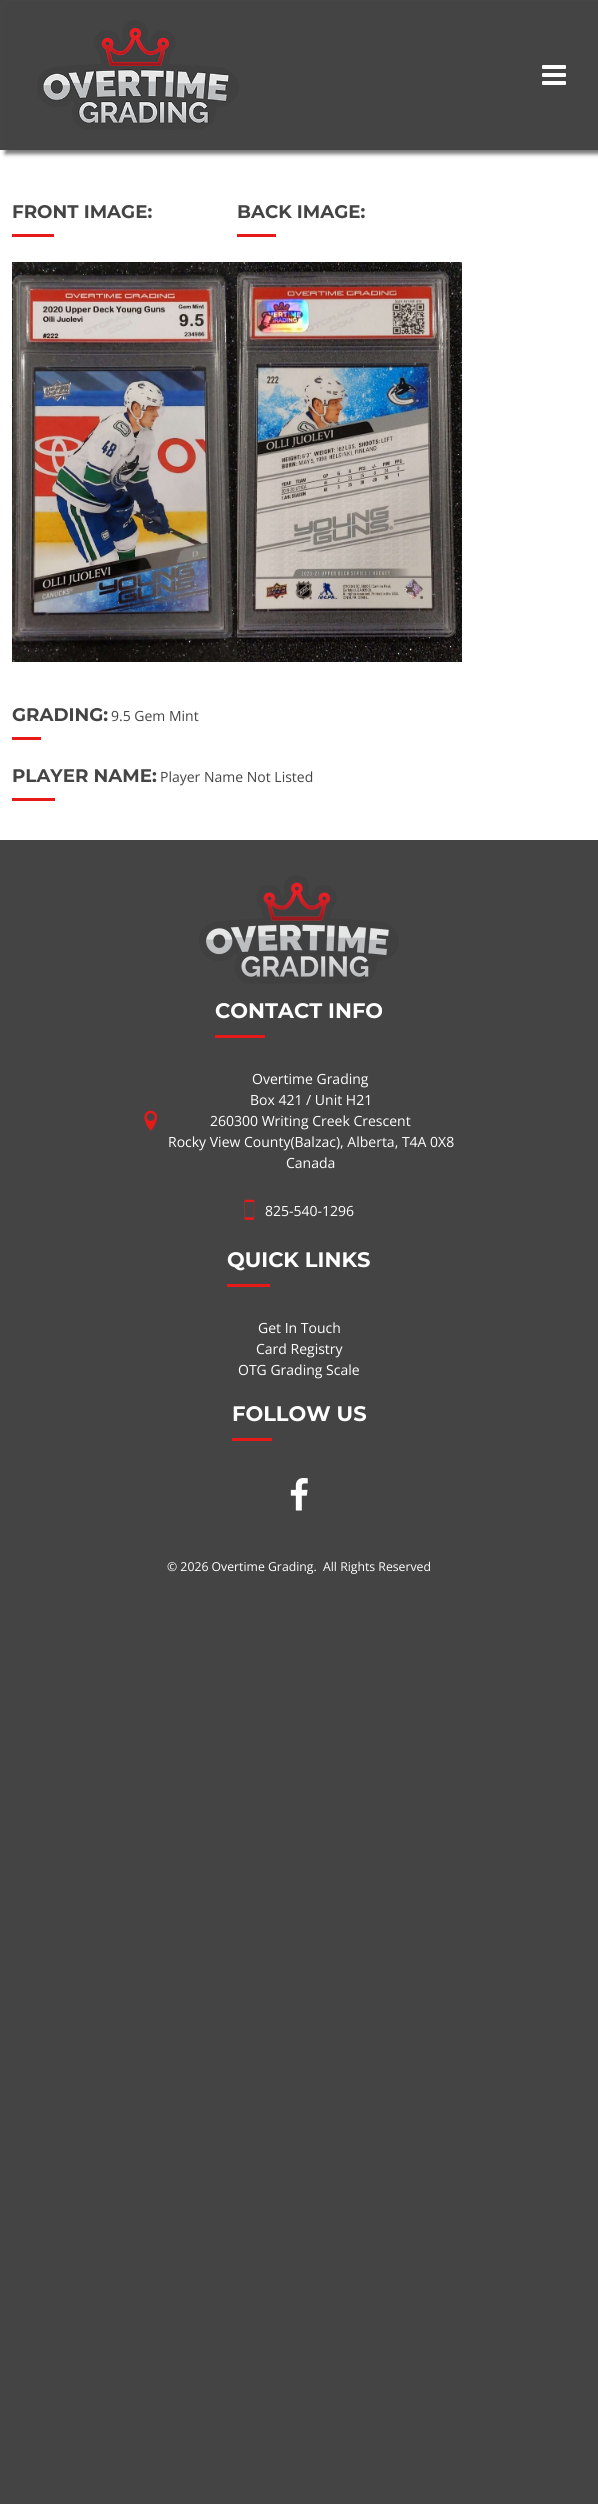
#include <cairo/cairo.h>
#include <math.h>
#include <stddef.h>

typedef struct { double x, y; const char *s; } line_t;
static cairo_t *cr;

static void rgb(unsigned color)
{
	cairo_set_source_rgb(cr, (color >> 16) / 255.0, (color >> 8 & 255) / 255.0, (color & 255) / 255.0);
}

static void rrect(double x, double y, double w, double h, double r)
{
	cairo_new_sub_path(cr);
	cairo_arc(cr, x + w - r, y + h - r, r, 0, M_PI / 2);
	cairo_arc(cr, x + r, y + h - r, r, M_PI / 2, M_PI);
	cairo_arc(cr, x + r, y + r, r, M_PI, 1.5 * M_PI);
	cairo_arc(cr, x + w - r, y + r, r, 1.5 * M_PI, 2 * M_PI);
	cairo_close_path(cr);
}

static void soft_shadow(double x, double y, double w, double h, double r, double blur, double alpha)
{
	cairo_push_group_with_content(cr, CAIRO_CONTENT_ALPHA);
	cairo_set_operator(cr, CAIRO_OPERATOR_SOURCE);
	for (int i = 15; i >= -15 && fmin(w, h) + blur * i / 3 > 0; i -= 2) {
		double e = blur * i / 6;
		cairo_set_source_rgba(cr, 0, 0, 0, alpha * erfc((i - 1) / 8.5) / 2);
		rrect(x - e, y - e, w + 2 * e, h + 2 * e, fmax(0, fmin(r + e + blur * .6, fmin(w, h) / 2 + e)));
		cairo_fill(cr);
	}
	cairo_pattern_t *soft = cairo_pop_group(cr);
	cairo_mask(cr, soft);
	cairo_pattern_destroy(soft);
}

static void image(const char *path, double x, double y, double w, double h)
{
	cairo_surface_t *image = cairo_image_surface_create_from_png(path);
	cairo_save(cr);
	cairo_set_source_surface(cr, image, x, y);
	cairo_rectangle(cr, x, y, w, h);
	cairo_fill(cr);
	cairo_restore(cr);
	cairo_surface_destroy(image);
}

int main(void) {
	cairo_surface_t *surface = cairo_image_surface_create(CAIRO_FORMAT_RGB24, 598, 2504);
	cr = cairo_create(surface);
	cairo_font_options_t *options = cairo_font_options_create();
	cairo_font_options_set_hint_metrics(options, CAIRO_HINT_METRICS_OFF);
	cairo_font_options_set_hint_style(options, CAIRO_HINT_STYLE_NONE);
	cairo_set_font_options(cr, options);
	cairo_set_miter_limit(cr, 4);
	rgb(0x444444);
	cairo_paint(cr);
	rgb(0xffffff);
	cairo_rectangle(cr, 0, 150, 598, 690);
	cairo_fill(cr);
	rgb(0x777777);
	soft_shadow(5, 4, 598, 150, 0, 2, 1);
	rgb(0x444444);
	cairo_rectangle(cr, 2, 1, 596, 149);
	cairo_fill(cr);
	image("img/1.png", 37, 20, 202, 110);
	image("img/2.png", 542, 65, 24, 20);
	rgb(0xe81919);
	cairo_rectangle(cr, 12, 234, 42, 3);
	cairo_fill(cr);
	image("img/3.png", 12, 262, 225, 400);
	cairo_rectangle(cr, 237, 234, 39, 3);
	cairo_fill(cr);
	image("img/4.png", 237, 262, 225, 400);
	cairo_rectangle(cr, 12, 737, 29, 3);
	cairo_fill(cr);
	cairo_rectangle(cr, 12, 798, 43, 3);
	cairo_fill(cr);
	image("img/5.png", 199, 875, 200, 109);
	cairo_rectangle(cr, 215, 1035, 50, 3);
	cairo_fill(cr);
	image("img/6.png", 144, 1110, 13, 21);
	image("img/7.png", 244, 1199, 11, 21);
	cairo_rectangle(cr, 227, 1284, 43, 3);
	cairo_fill(cr);
	cairo_rectangle(cr, 232, 1438, 40, 3);
	cairo_fill(cr);
	image("img/8.png", 290, 1478, 18, 33);
	cairo_select_font_face(cr, "Montserrat", CAIRO_FONT_SLANT_NORMAL, CAIRO_FONT_WEIGHT_BOLD);
	cairo_set_font_size(cr, 18.25);
	rgb(0x444444);
	{
		static const line_t items[] = {
			{12, 218, "FRONT IMAGE:"},
			{237, 218, "BACK IMAGE:"},
			{12, 721, "GRADING:"},
		};
		for (size_t i = 0; i < sizeof items / sizeof *items; i++) {
			cairo_move_to(cr, items[i].x, items[i].y);
			cairo_show_text(cr, items[i].s);
		}
	}
	cairo_select_font_face(cr, "Open Sans", CAIRO_FONT_SLANT_NORMAL, CAIRO_FONT_WEIGHT_NORMAL);
	cairo_set_font_size(cr, 14);
	cairo_move_to(cr, 111, 721);
	cairo_show_text(cr, "9.5 Gem Mint");
	cairo_select_font_face(cr, "Montserrat", CAIRO_FONT_SLANT_NORMAL, CAIRO_FONT_WEIGHT_BOLD);
	cairo_set_font_size(cr, 18.25);
	cairo_move_to(cr, 12, 782);
	cairo_show_text(cr, "PLAYER NAME:");
	cairo_select_font_face(cr, "Open Sans", CAIRO_FONT_SLANT_NORMAL, CAIRO_FONT_WEIGHT_NORMAL);
	cairo_set_font_size(cr, 14);
	cairo_move_to(cr, 160, 782);
	cairo_show_text(cr, "Player Name Not Listed");
	cairo_select_font_face(cr, "Montserrat", CAIRO_FONT_SLANT_NORMAL, CAIRO_FONT_WEIGHT_BOLD);
	cairo_set_font_size(cr, 21);
	rgb(0xffffff);
	cairo_move_to(cr, 215, 1018);
	cairo_show_text(cr, "CONTACT INFO");
	cairo_select_font_face(cr, "Open Sans", CAIRO_FONT_SLANT_NORMAL, CAIRO_FONT_WEIGHT_NORMAL);
	cairo_set_font_size(cr, 14);
	{
		static const line_t items[] = {
			{252, 1084, "Overtime Grading"},
			{250, 1105, "Box 421 / Unit H21"},
			{210, 1126, "260300 Writing Creek Crescent"},
			{168, 1147, "Rocky View County(Balzac), Alberta, T4A 0X8"},
			{286, 1168, "Canada"},
			{265, 1216, "825-540-1296"},
		};
		for (size_t i = 0; i < sizeof items / sizeof *items; i++) {
			cairo_move_to(cr, items[i].x, items[i].y);
			cairo_show_text(cr, items[i].s);
		}
	}
	cairo_select_font_face(cr, "Montserrat", CAIRO_FONT_SLANT_NORMAL, CAIRO_FONT_WEIGHT_BOLD);
	cairo_set_font_size(cr, 21);
	cairo_move_to(cr, 227, 1267);
	cairo_show_text(cr, "QUICK LINKS");
	cairo_select_font_face(cr, "Open Sans", CAIRO_FONT_SLANT_NORMAL, CAIRO_FONT_WEIGHT_NORMAL);
	cairo_set_font_size(cr, 14);
	{
		static const line_t items[] = {
			{258, 1333, "Get In Touch"},
			{256, 1354, "Card Registry"},
			{238, 1375, "OTG Grading Scale"},
		};
		for (size_t i = 0; i < sizeof items / sizeof *items; i++) {
			cairo_move_to(cr, items[i].x, items[i].y);
			cairo_show_text(cr, items[i].s);
		}
	}
	cairo_select_font_face(cr, "Montserrat", CAIRO_FONT_SLANT_NORMAL, CAIRO_FONT_WEIGHT_BOLD);
	cairo_set_font_size(cr, 21);
	cairo_move_to(cr, 232, 1421);
	cairo_show_text(cr, "FOLLOW US");
	cairo_select_font_face(cr, "Open Sans", CAIRO_FONT_SLANT_NORMAL, CAIRO_FONT_WEIGHT_NORMAL);
	cairo_set_font_size(cr, 12.25);
	cairo_move_to(cr, 167, 1571);
	cairo_show_text(cr, "© 2026 Overtime Grading.  All Rights Reserved");
	cairo_surface_write_to_png(surface, "page.png");
	cairo_font_options_destroy(options);
	cairo_destroy(cr);
	cairo_surface_destroy(surface);
	return 0;
}
